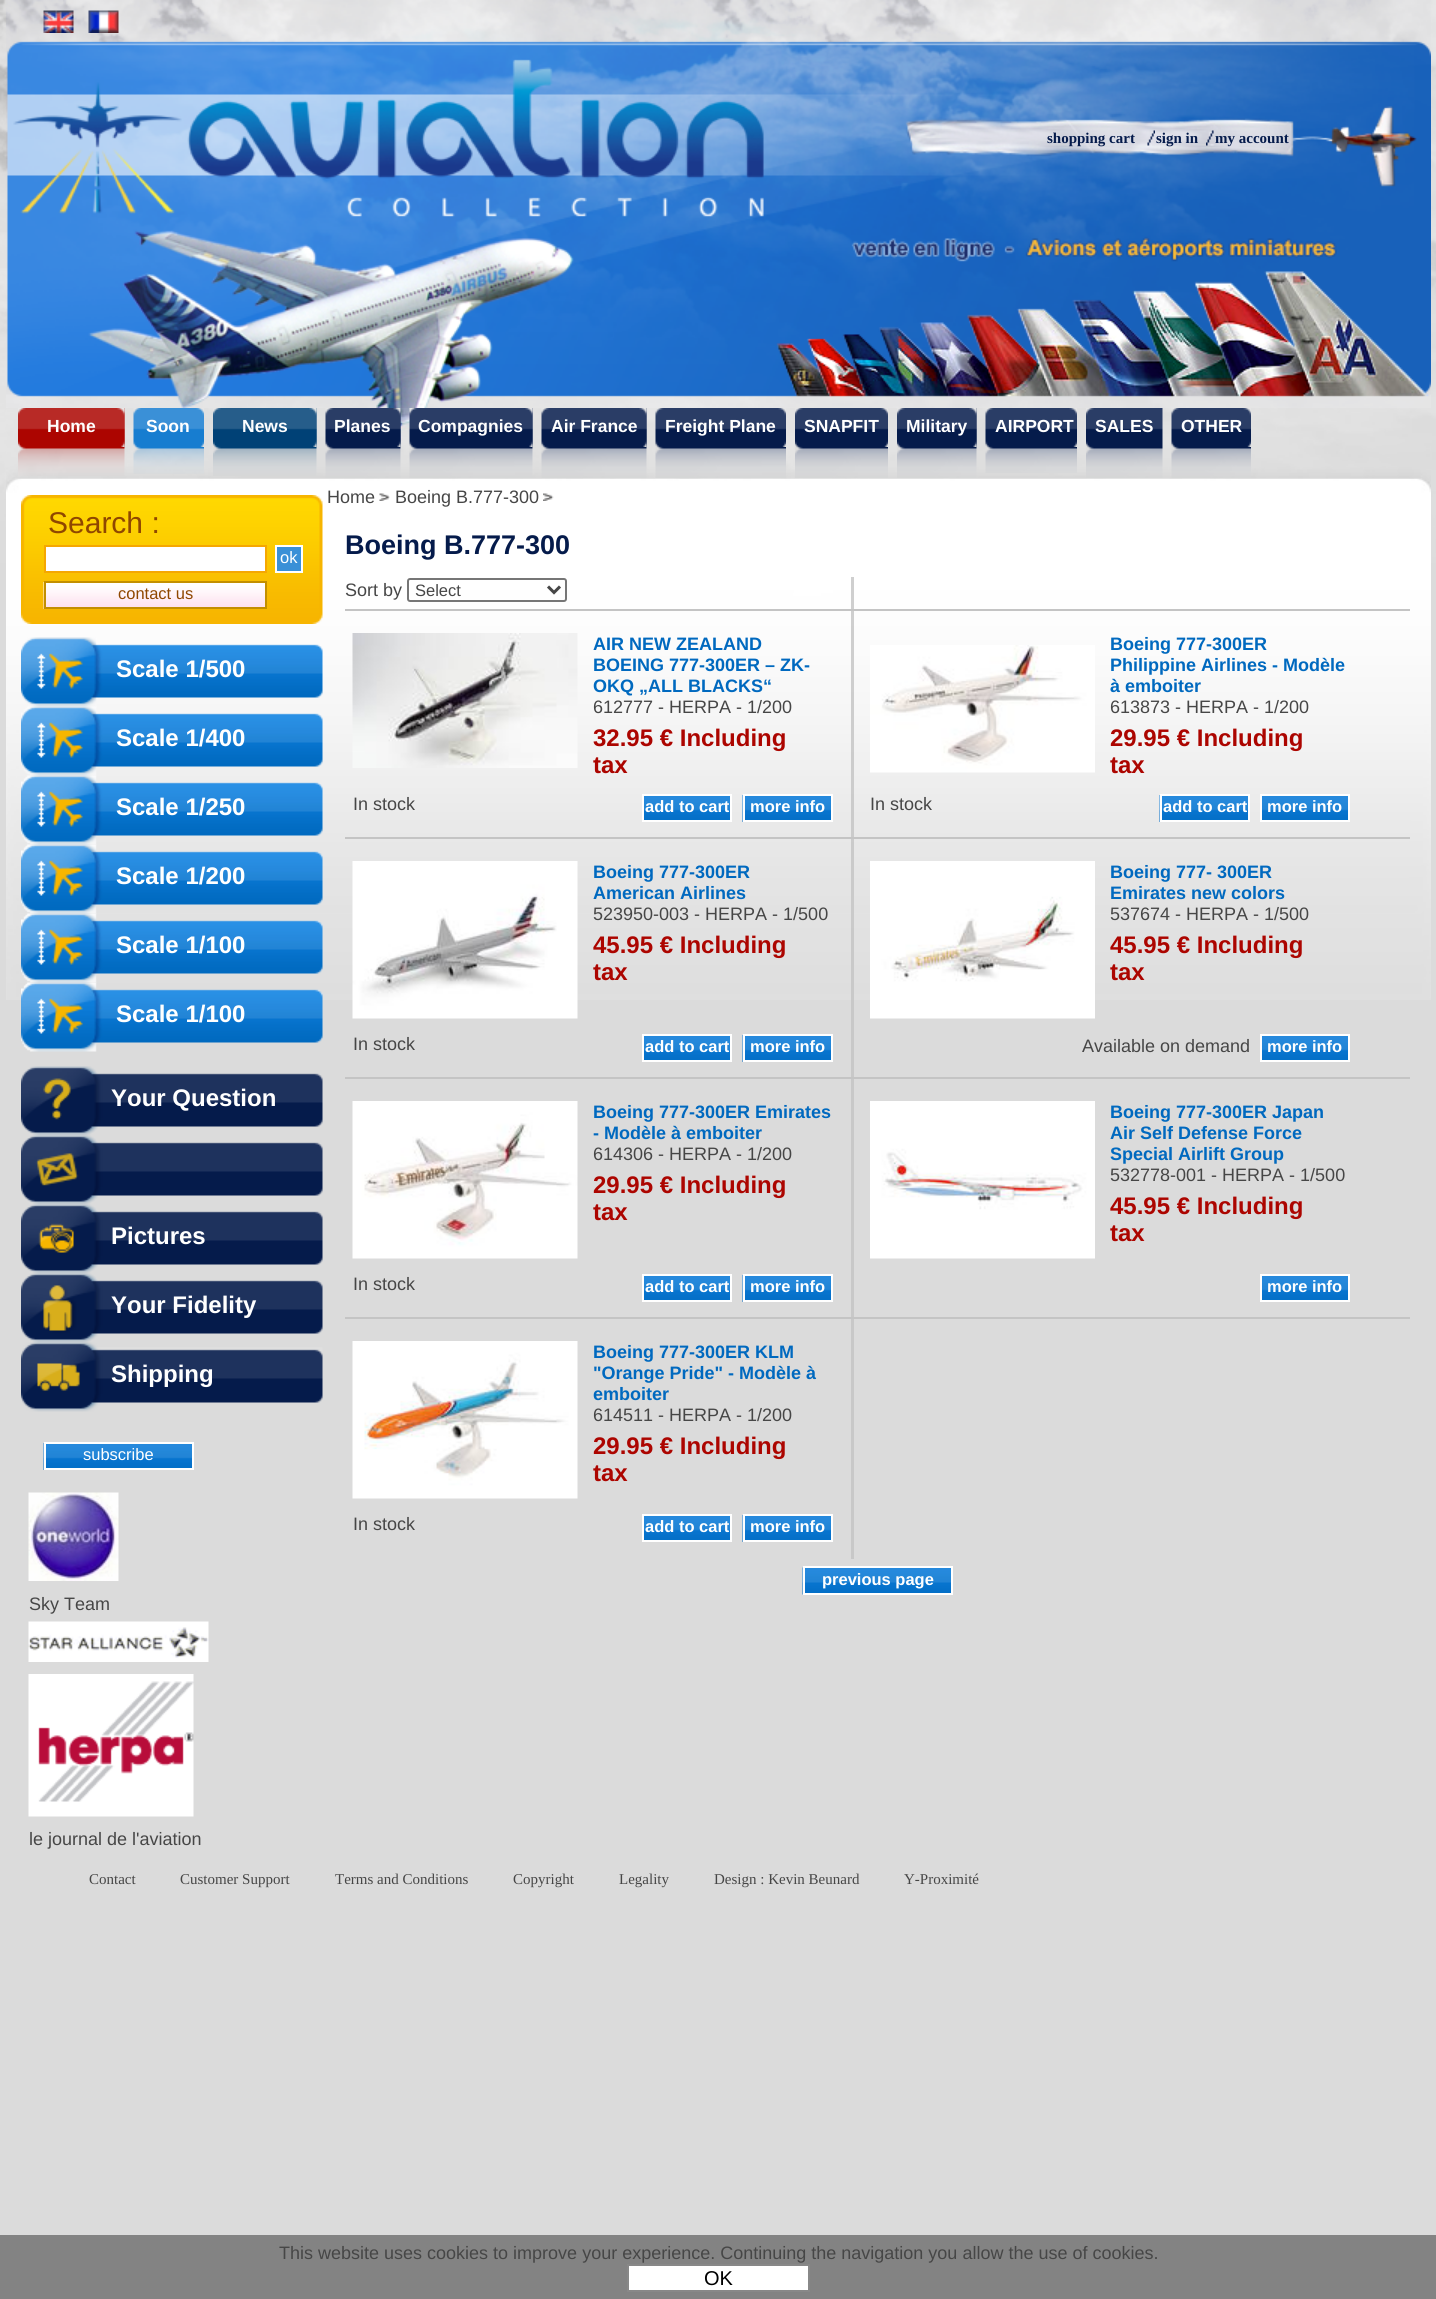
#include <cairo/cairo.h>
#include <math.h>
#include <stddef.h>

typedef struct { double x, y; const char *s; } line_t;
static cairo_t *cr;

static void rgb(unsigned color)
{
	cairo_set_source_rgb(cr, (color >> 16) / 255.0, (color >> 8 & 255) / 255.0, (color & 255) / 255.0);
}

static void rrect(double x, double y, double w, double h, double r)
{
	cairo_new_sub_path(cr);
	cairo_arc(cr, x + w - r, y + h - r, r, 0, M_PI / 2);
	cairo_arc(cr, x + r, y + h - r, r, M_PI / 2, M_PI);
	cairo_arc(cr, x + r, y + r, r, M_PI, 1.5 * M_PI);
	cairo_arc(cr, x + w - r, y + r, r, 1.5 * M_PI, 2 * M_PI);
	cairo_close_path(cr);
}

static void image(const char *path, double x, double y, double w, double h)
{
	cairo_surface_t *image = cairo_image_surface_create_from_png(path);
	cairo_save(cr);
	cairo_set_source_surface(cr, image, x, y);
	cairo_rectangle(cr, x, y, w, h);
	cairo_fill(cr);
	cairo_restore(cr);
	cairo_surface_destroy(image);
}

int main(void) {
	cairo_surface_t *surface = cairo_image_surface_create(CAIRO_FORMAT_RGB24, 1436, 2299);
	cr = cairo_create(surface);
	cairo_font_options_t *options = cairo_font_options_create();
	cairo_font_options_set_hint_metrics(options, CAIRO_HINT_METRICS_OFF);
	cairo_font_options_set_hint_style(options, CAIRO_HINT_STYLE_NONE);
	cairo_set_font_options(cr, options);
	cairo_set_miter_limit(cr, 4);
	rgb(0xdbdbdb);
	cairo_paint(cr);
	image("img/1.png", 0, 0, 1436, 563);
	image("img/2.png", 6, 408, 1425, 592);
	image("img/3.png", 6, 0, 1425, 408);
	image("img/4.png", 43, 10, 31, 23);
	image("img/5.png", 88, 10, 31, 23);
	image("img/6.png", 1147, 130, 8, 16);
	image("img/7.png", 1206, 130, 8, 16);
	image("img/8.png", 16, 408, 1405, 71);
	image("img/9.png", 18, 408, 107, 68);
	image("img/10.png", 117, 408, 8, 39);
	image("img/11.png", 133, 408, 71, 66);
	image("img/12.png", 196, 408, 8, 39);
	image("img/13.png", 213, 408, 104, 68);
	image("img/14.png", 309, 408, 8, 39);
	image("img/15.png", 325, 408, 76, 70);
	image("img/16.png", 393, 408, 8, 39);
	image("img/17.png", 409, 408, 124, 70);
	image("img/18.png", 525, 408, 8, 39);
	image("img/19.png", 541, 408, 106, 70);
	image("img/20.png", 639, 408, 8, 39);
	image("img/21.png", 655, 408, 131, 70);
	image("img/22.png", 778, 408, 8, 39);
	image("img/23.png", 795, 408, 93, 70);
	image("img/24.png", 880, 408, 8, 39);
	image("img/25.png", 897, 408, 80, 70);
	image("img/26.png", 969, 408, 8, 39);
	image("img/27.png", 985, 408, 92, 65);
	image("img/28.png", 1069, 408, 8, 39);
	image("img/29.png", 1086, 408, 77, 70);
	image("img/30.png", 1171, 408, 80, 70);
	image("img/24.png", 1243, 408, 8, 39);
	image("img/31.png", 379, 493, 11, 8);
	image("img/32.png", 543, 493, 11, 8);
	image("img/33.png", 21, 495, 302, 129);
	rgb(0xffffff);
	cairo_rectangle(cr, 45, 546, 221, 26);
	cairo_fill_preserve(cr);
	rgb(0xf5a701);
	cairo_stroke(cr);
	rgb(0x3a90d7);
	cairo_rectangle(cr, 276, 546, 26, 26);
	cairo_fill_preserve(cr);
	rgb(0xffffff);
	cairo_stroke(cr);
	image("img/34.png", 43, 582, 222, 27);
	cairo_rectangle(cr, 45, 582, 221, 26);
	rgb(0xc38f00);
	cairo_stroke(cr);
	image("img/35.png", 21, 637, 302, 70);
	image("img/36.png", 21, 706, 302, 70);
	image("img/37.png", 21, 775, 302, 70);
	image("img/38.png", 21, 844, 302, 70);
	image("img/39.png", 21, 913, 302, 70);
	image("img/40.png", 21, 982, 302, 70);
	image("img/41.png", 21, 1066, 302, 70);
	image("img/42.png", 21, 1135, 302, 70);
	image("img/43.png", 21, 1204, 302, 70);
	image("img/44.png", 21, 1273, 302, 70);
	image("img/45.png", 21, 1342, 302, 70);
	image("img/46.png", 43, 1443, 149, 27);
	cairo_rectangle(cr, 45, 1443, 148, 26);
	rgb(0xffffff);
	cairo_stroke(cr);
	image("img/47.png", 28, 1492, 91, 89);
	image("img/48.png", 28, 1621, 181, 41);
	image("img/49.png", 28, 1674, 166, 143);
	cairo_set_source_rgba(cr, 0.769, 0.769, 0.769, 0.81);
	cairo_rectangle(cr, 851, 577, 3, 982);
	cairo_fill(cr);
	rrect(408, 579, 158, 22, 2);
	rgb(0x767676);
	cairo_stroke(cr);
	cairo_new_path(cr);
	cairo_move_to(cr, 548, 586.5);
	cairo_line_to(cr, 554, 592.5);
	cairo_line_to(cr, 560, 586.5);
	rgb(0x464646);
	cairo_set_line_width(cr, 3);
	cairo_stroke(cr);
	rgb(0xc4c4c4);
	cairo_rectangle(cr, 345, 609, 1065, 2);
	cairo_fill(cr);
	image("img/50.png", 352, 633, 226, 135);
	image("img/51.png", 644, 796, 86, 24);
	cairo_rectangle(cr, 643, 795, 88, 26);
	rgb(0xffffff);
	cairo_set_line_width(cr, 2);
	cairo_stroke(cr);
	image("img/52.png", 742, 795, 89, 27);
	cairo_rectangle(cr, 744, 795, 88, 26);
	cairo_stroke(cr);
	image("img/53.png", 870, 645, 225, 128);
	image("img/52.png", 1159, 795, 89, 27);
	cairo_rectangle(cr, 1161, 795, 88, 26);
	cairo_stroke(cr);
	image("img/51.png", 1262, 796, 86, 24);
	cairo_rectangle(cr, 1261, 795, 88, 26);
	cairo_stroke(cr);
	rgb(0xc4c4c4);
	cairo_rectangle(cr, 345, 837, 1065, 2);
	cairo_fill(cr);
	image("img/54.png", 352, 861, 226, 158);
	image("img/51.png", 644, 1036, 86, 24);
	cairo_rectangle(cr, 643, 1035, 88, 26);
	rgb(0xffffff);
	cairo_stroke(cr);
	image("img/55.png", 742, 1035, 89, 27);
	cairo_rectangle(cr, 744, 1035, 88, 26);
	cairo_stroke(cr);
	image("img/56.png", 870, 861, 225, 158);
	image("img/51.png", 1262, 1036, 86, 24);
	cairo_rectangle(cr, 1261, 1035, 88, 26);
	cairo_stroke(cr);
	rgb(0xc4c4c4);
	cairo_rectangle(cr, 345, 1077, 1065, 2);
	cairo_fill(cr);
	image("img/57.png", 352, 1101, 226, 158);
	image("img/51.png", 644, 1276, 86, 24);
	cairo_rectangle(cr, 643, 1275, 88, 26);
	rgb(0xffffff);
	cairo_stroke(cr);
	image("img/55.png", 742, 1275, 89, 27);
	cairo_rectangle(cr, 744, 1275, 88, 26);
	cairo_stroke(cr);
	image("img/58.png", 870, 1101, 225, 158);
	image("img/51.png", 1262, 1276, 86, 24);
	cairo_rectangle(cr, 1261, 1275, 88, 26);
	cairo_stroke(cr);
	rgb(0xc4c4c4);
	cairo_rectangle(cr, 345, 1317, 1065, 2);
	cairo_fill(cr);
	image("img/59.png", 352, 1341, 226, 158);
	image("img/51.png", 644, 1516, 86, 24);
	cairo_rectangle(cr, 643, 1515, 88, 26);
	rgb(0xffffff);
	cairo_stroke(cr);
	image("img/55.png", 742, 1515, 89, 27);
	cairo_rectangle(cr, 744, 1515, 88, 26);
	cairo_stroke(cr);
	image("img/60.png", 802, 1567, 149, 28);
	cairo_rectangle(cr, 804, 1567, 148, 27);
	cairo_stroke(cr);
	rgb(0x838383);
	cairo_rectangle(cr, 0, 2235, 1436, 64);
	cairo_fill(cr);
	rgb(0xffffff);
	cairo_rectangle(cr, 628, 2265, 181, 26);
	cairo_fill_preserve(cr);
	rgb(0x888888);
	cairo_stroke(cr);
	cairo_select_font_face(cr, "Liberation Serif", CAIRO_FONT_SLANT_NORMAL, CAIRO_FONT_WEIGHT_BOLD);
	cairo_set_font_size(cr, 15);
	rgb(0x051b4b);
	{
		static const line_t items[] = {
			{1047, 143, "shopping cart"},
			{1156, 143, "sign in"},
			{1215, 143, "my account"},
		};
		for (size_t i = 0; i < sizeof items / sizeof *items; i++) {
			cairo_move_to(cr, items[i].x, items[i].y);
			cairo_show_text(cr, items[i].s);
		}
	}
	cairo_select_font_face(cr, "Liberation Sans", CAIRO_FONT_SLANT_NORMAL, CAIRO_FONT_WEIGHT_BOLD);
	cairo_set_font_size(cr, 17.5);
	rgb(0xffffff);
	{
		static const line_t items[] = {
			{47, 432, "Home"},
			{146, 432, "Soon"},
			{242, 432, "News"},
			{334, 432, "Planes"},
			{418, 432, "Compagnies"},
			{551, 432, "Air France"},
			{665, 432, "Freight Plane"},
			{804, 432, "SNAPFIT"},
			{906, 432, "Military"},
			{995, 432, "AIRPORT"},
			{1095, 432, "SALES"},
			{1181, 432, "OTHER"},
		};
		for (size_t i = 0; i < sizeof items / sizeof *items; i++) {
			cairo_move_to(cr, items[i].x, items[i].y);
			cairo_show_text(cr, items[i].s);
		}
	}
	cairo_select_font_face(cr, "Liberation Sans", CAIRO_FONT_SLANT_NORMAL, CAIRO_FONT_WEIGHT_NORMAL);
	cairo_set_font_size(cr, 18);
	rgb(0x464646);
	cairo_move_to(cr, 327, 503);
	cairo_show_text(cr, "Home");
	cairo_move_to(cr, 395, 503);
	cairo_show_text(cr, "Boeing B.777-300");
	cairo_set_font_size(cr, 30);
	rgb(0x8f4700);
	cairo_move_to(cr, 48, 533);
	cairo_show_text(cr, "Search :");
	cairo_set_font_size(cr, 16.5);
	rgb(0xffffff);
	cairo_move_to(cr, 280, 563);
	cairo_show_text(cr, "ok");
	rgb(0x8f4700);
	cairo_move_to(cr, 118, 599);
	cairo_show_text(cr, "contact us");
	cairo_select_font_face(cr, "Liberation Sans", CAIRO_FONT_SLANT_NORMAL, CAIRO_FONT_WEIGHT_BOLD);
	cairo_set_font_size(cr, 24);
	rgb(0xffffff);
	{
		static const line_t items[] = {
			{116, 677, "Scale 1/500"},
			{116, 746, "Scale 1/400"},
			{116, 815, "Scale 1/250"},
			{116, 884, "Scale 1/200"},
			{116, 953, "Scale 1/100"},
			{116, 1022, "Scale 1/100"},
			{111, 1106, "Your Question"},
			{111, 1244, "Pictures"},
			{111, 1313, "Your Fidelity"},
			{111, 1382, "Shipping"},
		};
		for (size_t i = 0; i < sizeof items / sizeof *items; i++) {
			cairo_move_to(cr, items[i].x, items[i].y);
			cairo_show_text(cr, items[i].s);
		}
	}
	cairo_select_font_face(cr, "Liberation Sans", CAIRO_FONT_SLANT_NORMAL, CAIRO_FONT_WEIGHT_NORMAL);
	cairo_set_font_size(cr, 16.5);
	cairo_move_to(cr, 83, 1460);
	cairo_show_text(cr, "subscribe");
	cairo_set_font_size(cr, 18);
	rgb(0x464646);
	cairo_move_to(cr, 29, 1610);
	cairo_show_text(cr, "Sky Team");
	cairo_move_to(cr, 29, 1845);
	cairo_show_text(cr, "le journal de l'aviation");
	cairo_select_font_face(cr, "Liberation Sans", CAIRO_FONT_SLANT_NORMAL, CAIRO_FONT_WEIGHT_BOLD);
	cairo_set_font_size(cr, 27);
	rgb(0x051b4b);
	cairo_move_to(cr, 345, 554);
	cairo_show_text(cr, "Boeing B.777-300");
	cairo_select_font_face(cr, "Liberation Sans", CAIRO_FONT_SLANT_NORMAL, CAIRO_FONT_WEIGHT_NORMAL);
	cairo_set_font_size(cr, 18);
	rgb(0x464646);
	cairo_move_to(cr, 345, 596);
	cairo_show_text(cr, "Sort by");
	cairo_set_font_size(cr, 16.5);
	cairo_move_to(cr, 415, 596);
	cairo_show_text(cr, "Select");
	cairo_select_font_face(cr, "Liberation Sans", CAIRO_FONT_SLANT_NORMAL, CAIRO_FONT_WEIGHT_BOLD);
	cairo_set_font_size(cr, 18);
	rgb(0x0069bf);
	{
		static const line_t items[] = {
			{593, 650, "AIR NEW ZEALAND"},
			{593, 671, "BOEING 777-300ER – ZK-"},
			{593, 692, "OKQ „ALL BLACKS“"},
		};
		for (size_t i = 0; i < sizeof items / sizeof *items; i++) {
			cairo_move_to(cr, items[i].x, items[i].y);
			cairo_show_text(cr, items[i].s);
		}
	}
	cairo_select_font_face(cr, "Liberation Sans", CAIRO_FONT_SLANT_NORMAL, CAIRO_FONT_WEIGHT_NORMAL);
	rgb(0x464646);
	cairo_move_to(cr, 593, 713);
	cairo_show_text(cr, "612777 - HERPA - 1/200");
	cairo_select_font_face(cr, "Liberation Sans", CAIRO_FONT_SLANT_NORMAL, CAIRO_FONT_WEIGHT_BOLD);
	cairo_set_font_size(cr, 24);
	rgb(0xac0500);
	cairo_move_to(cr, 593, 746);
	cairo_show_text(cr, "32.95 € Including");
	cairo_move_to(cr, 593, 773);
	cairo_show_text(cr, "tax");
	cairo_select_font_face(cr, "Liberation Sans", CAIRO_FONT_SLANT_NORMAL, CAIRO_FONT_WEIGHT_NORMAL);
	cairo_set_font_size(cr, 18);
	rgb(0x464646);
	cairo_move_to(cr, 353, 810);
	cairo_show_text(cr, "In stock");
	cairo_select_font_face(cr, "Liberation Sans", CAIRO_FONT_SLANT_NORMAL, CAIRO_FONT_WEIGHT_BOLD);
	cairo_set_font_size(cr, 16.5);
	rgb(0xffffff);
	cairo_move_to(cr, 645, 812);
	cairo_show_text(cr, "add to cart");
	cairo_move_to(cr, 750, 812);
	cairo_show_text(cr, "more info");
	cairo_set_font_size(cr, 18);
	rgb(0x0069bf);
	{
		static const line_t items[] = {
			{1110, 650, "Boeing 777-300ER"},
			{1110, 671, "Philippine Airlines - Modèle"},
			{1110, 692, "à emboiter"},
		};
		for (size_t i = 0; i < sizeof items / sizeof *items; i++) {
			cairo_move_to(cr, items[i].x, items[i].y);
			cairo_show_text(cr, items[i].s);
		}
	}
	cairo_select_font_face(cr, "Liberation Sans", CAIRO_FONT_SLANT_NORMAL, CAIRO_FONT_WEIGHT_NORMAL);
	rgb(0x464646);
	cairo_move_to(cr, 1110, 713);
	cairo_show_text(cr, "613873 - HERPA - 1/200");
	cairo_select_font_face(cr, "Liberation Sans", CAIRO_FONT_SLANT_NORMAL, CAIRO_FONT_WEIGHT_BOLD);
	cairo_set_font_size(cr, 24);
	rgb(0xac0500);
	cairo_move_to(cr, 1110, 746);
	cairo_show_text(cr, "29.95 € Including");
	cairo_move_to(cr, 1110, 773);
	cairo_show_text(cr, "tax");
	cairo_select_font_face(cr, "Liberation Sans", CAIRO_FONT_SLANT_NORMAL, CAIRO_FONT_WEIGHT_NORMAL);
	cairo_set_font_size(cr, 18);
	rgb(0x464646);
	cairo_move_to(cr, 870, 810);
	cairo_show_text(cr, "In stock");
	cairo_select_font_face(cr, "Liberation Sans", CAIRO_FONT_SLANT_NORMAL, CAIRO_FONT_WEIGHT_BOLD);
	cairo_set_font_size(cr, 16.5);
	rgb(0xffffff);
	cairo_move_to(cr, 1163, 812);
	cairo_show_text(cr, "add to cart");
	cairo_move_to(cr, 1267, 812);
	cairo_show_text(cr, "more info");
	cairo_set_font_size(cr, 18);
	rgb(0x0069bf);
	cairo_move_to(cr, 593, 878);
	cairo_show_text(cr, "Boeing 777-300ER");
	cairo_move_to(cr, 593, 899);
	cairo_show_text(cr, "American Airlines");
	cairo_select_font_face(cr, "Liberation Sans", CAIRO_FONT_SLANT_NORMAL, CAIRO_FONT_WEIGHT_NORMAL);
	rgb(0x464646);
	cairo_move_to(cr, 593, 920);
	cairo_show_text(cr, "523950-003 - HERPA - 1/500");
	cairo_select_font_face(cr, "Liberation Sans", CAIRO_FONT_SLANT_NORMAL, CAIRO_FONT_WEIGHT_BOLD);
	cairo_set_font_size(cr, 24);
	rgb(0xac0500);
	cairo_move_to(cr, 593, 953);
	cairo_show_text(cr, "45.95 € Including");
	cairo_move_to(cr, 593, 980);
	cairo_show_text(cr, "tax");
	cairo_select_font_face(cr, "Liberation Sans", CAIRO_FONT_SLANT_NORMAL, CAIRO_FONT_WEIGHT_NORMAL);
	cairo_set_font_size(cr, 18);
	rgb(0x464646);
	cairo_move_to(cr, 353, 1050);
	cairo_show_text(cr, "In stock");
	cairo_select_font_face(cr, "Liberation Sans", CAIRO_FONT_SLANT_NORMAL, CAIRO_FONT_WEIGHT_BOLD);
	cairo_set_font_size(cr, 16.5);
	rgb(0xffffff);
	cairo_move_to(cr, 645, 1052);
	cairo_show_text(cr, "add to cart");
	cairo_move_to(cr, 750, 1052);
	cairo_show_text(cr, "more info");
	cairo_set_font_size(cr, 18);
	rgb(0x0069bf);
	cairo_move_to(cr, 1110, 878);
	cairo_show_text(cr, "Boeing 777- 300ER");
	cairo_move_to(cr, 1110, 899);
	cairo_show_text(cr, "Emirates new colors");
	cairo_select_font_face(cr, "Liberation Sans", CAIRO_FONT_SLANT_NORMAL, CAIRO_FONT_WEIGHT_NORMAL);
	rgb(0x464646);
	cairo_move_to(cr, 1110, 920);
	cairo_show_text(cr, "537674 - HERPA - 1/500");
	cairo_select_font_face(cr, "Liberation Sans", CAIRO_FONT_SLANT_NORMAL, CAIRO_FONT_WEIGHT_BOLD);
	cairo_set_font_size(cr, 24);
	rgb(0xac0500);
	cairo_move_to(cr, 1110, 953);
	cairo_show_text(cr, "45.95 € Including");
	cairo_move_to(cr, 1110, 980);
	cairo_show_text(cr, "tax");
	cairo_select_font_face(cr, "Liberation Sans", CAIRO_FONT_SLANT_NORMAL, CAIRO_FONT_WEIGHT_NORMAL);
	cairo_set_font_size(cr, 18);
	rgb(0x464646);
	cairo_move_to(cr, 1082, 1052);
	cairo_show_text(cr, "Available on demand");
	cairo_select_font_face(cr, "Liberation Sans", CAIRO_FONT_SLANT_NORMAL, CAIRO_FONT_WEIGHT_BOLD);
	cairo_set_font_size(cr, 16.5);
	rgb(0xffffff);
	cairo_move_to(cr, 1267, 1052);
	cairo_show_text(cr, "more info");
	cairo_set_font_size(cr, 18);
	rgb(0x0069bf);
	cairo_move_to(cr, 593, 1118);
	cairo_show_text(cr, "Boeing 777-300ER Emirates");
	cairo_move_to(cr, 593, 1139);
	cairo_show_text(cr, "- Modèle à emboiter");
	cairo_select_font_face(cr, "Liberation Sans", CAIRO_FONT_SLANT_NORMAL, CAIRO_FONT_WEIGHT_NORMAL);
	rgb(0x464646);
	cairo_move_to(cr, 593, 1160);
	cairo_show_text(cr, "614306 - HERPA - 1/200");
	cairo_select_font_face(cr, "Liberation Sans", CAIRO_FONT_SLANT_NORMAL, CAIRO_FONT_WEIGHT_BOLD);
	cairo_set_font_size(cr, 24);
	rgb(0xac0500);
	cairo_move_to(cr, 593, 1193);
	cairo_show_text(cr, "29.95 € Including");
	cairo_move_to(cr, 593, 1220);
	cairo_show_text(cr, "tax");
	cairo_select_font_face(cr, "Liberation Sans", CAIRO_FONT_SLANT_NORMAL, CAIRO_FONT_WEIGHT_NORMAL);
	cairo_set_font_size(cr, 18);
	rgb(0x464646);
	cairo_move_to(cr, 353, 1290);
	cairo_show_text(cr, "In stock");
	cairo_select_font_face(cr, "Liberation Sans", CAIRO_FONT_SLANT_NORMAL, CAIRO_FONT_WEIGHT_BOLD);
	cairo_set_font_size(cr, 16.5);
	rgb(0xffffff);
	cairo_move_to(cr, 645, 1292);
	cairo_show_text(cr, "add to cart");
	cairo_move_to(cr, 750, 1292);
	cairo_show_text(cr, "more info");
	cairo_set_font_size(cr, 18);
	rgb(0x0069bf);
	{
		static const line_t items[] = {
			{1110, 1118, "Boeing 777-300ER Japan"},
			{1110, 1139, "Air Self Defense Force"},
			{1110, 1160, "Special Airlift Group"},
		};
		for (size_t i = 0; i < sizeof items / sizeof *items; i++) {
			cairo_move_to(cr, items[i].x, items[i].y);
			cairo_show_text(cr, items[i].s);
		}
	}
	cairo_select_font_face(cr, "Liberation Sans", CAIRO_FONT_SLANT_NORMAL, CAIRO_FONT_WEIGHT_NORMAL);
	rgb(0x464646);
	cairo_move_to(cr, 1110, 1181);
	cairo_show_text(cr, "532778-001 - HERPA - 1/500");
	cairo_select_font_face(cr, "Liberation Sans", CAIRO_FONT_SLANT_NORMAL, CAIRO_FONT_WEIGHT_BOLD);
	cairo_set_font_size(cr, 24);
	rgb(0xac0500);
	cairo_move_to(cr, 1110, 1214);
	cairo_show_text(cr, "45.95 € Including");
	cairo_move_to(cr, 1110, 1241);
	cairo_show_text(cr, "tax");
	cairo_set_font_size(cr, 16.5);
	rgb(0xffffff);
	cairo_move_to(cr, 1267, 1292);
	cairo_show_text(cr, "more info");
	cairo_set_font_size(cr, 18);
	rgb(0x0069bf);
	{
		static const line_t items[] = {
			{593, 1358, "Boeing 777-300ER KLM"},
			{593, 1379, "\"Orange Pride\" - Modèle à"},
			{593, 1400, "emboiter"},
		};
		for (size_t i = 0; i < sizeof items / sizeof *items; i++) {
			cairo_move_to(cr, items[i].x, items[i].y);
			cairo_show_text(cr, items[i].s);
		}
	}
	cairo_select_font_face(cr, "Liberation Sans", CAIRO_FONT_SLANT_NORMAL, CAIRO_FONT_WEIGHT_NORMAL);
	rgb(0x464646);
	cairo_move_to(cr, 593, 1421);
	cairo_show_text(cr, "614511 - HERPA - 1/200");
	cairo_select_font_face(cr, "Liberation Sans", CAIRO_FONT_SLANT_NORMAL, CAIRO_FONT_WEIGHT_BOLD);
	cairo_set_font_size(cr, 24);
	rgb(0xac0500);
	cairo_move_to(cr, 593, 1454);
	cairo_show_text(cr, "29.95 € Including");
	cairo_move_to(cr, 593, 1481);
	cairo_show_text(cr, "tax");
	cairo_select_font_face(cr, "Liberation Sans", CAIRO_FONT_SLANT_NORMAL, CAIRO_FONT_WEIGHT_NORMAL);
	cairo_set_font_size(cr, 18);
	rgb(0x464646);
	cairo_move_to(cr, 353, 1530);
	cairo_show_text(cr, "In stock");
	cairo_select_font_face(cr, "Liberation Sans", CAIRO_FONT_SLANT_NORMAL, CAIRO_FONT_WEIGHT_BOLD);
	cairo_set_font_size(cr, 16.5);
	rgb(0xffffff);
	{
		static const line_t items[] = {
			{645, 1532, "add to cart"},
			{750, 1532, "more info"},
			{822, 1585, "previous page"},
		};
		for (size_t i = 0; i < sizeof items / sizeof *items; i++) {
			cairo_move_to(cr, items[i].x, items[i].y);
			cairo_show_text(cr, items[i].s);
		}
	}
	cairo_select_font_face(cr, "Liberation Serif", CAIRO_FONT_SLANT_NORMAL, CAIRO_FONT_WEIGHT_NORMAL);
	cairo_set_font_size(cr, 15);
	rgb(0x464646);
	{
		static const line_t items[] = {
			{89, 1884, "Contact"},
			{180, 1884, "Customer Support"},
			{335, 1884, "Terms and Conditions"},
			{513, 1884, "Copyright"},
			{619, 1884, "Legality"},
			{714, 1884, "Design : Kevin Beunard"},
			{904, 1884, "Y-Proximité"},
		};
		for (size_t i = 0; i < sizeof items / sizeof *items; i++) {
			cairo_move_to(cr, items[i].x, items[i].y);
			cairo_show_text(cr, items[i].s);
		}
	}
	cairo_select_font_face(cr, "Liberation Sans", CAIRO_FONT_SLANT_NORMAL, CAIRO_FONT_WEIGHT_NORMAL);
	cairo_set_font_size(cr, 18);
	cairo_move_to(cr, 279, 2259);
	cairo_show_text(cr, "This website uses cookies to improve your experience. Continuing the navigation you allow the use of cookies.");
	cairo_set_font_size(cr, 20);
	rgb(0x000000);
	cairo_move_to(cr, 704, 2285);
	cairo_show_text(cr, "OK");
	cairo_surface_write_to_png(surface, "page.png");
	cairo_font_options_destroy(options);
	cairo_destroy(cr);
	cairo_surface_destroy(surface);
	return 0;
}
